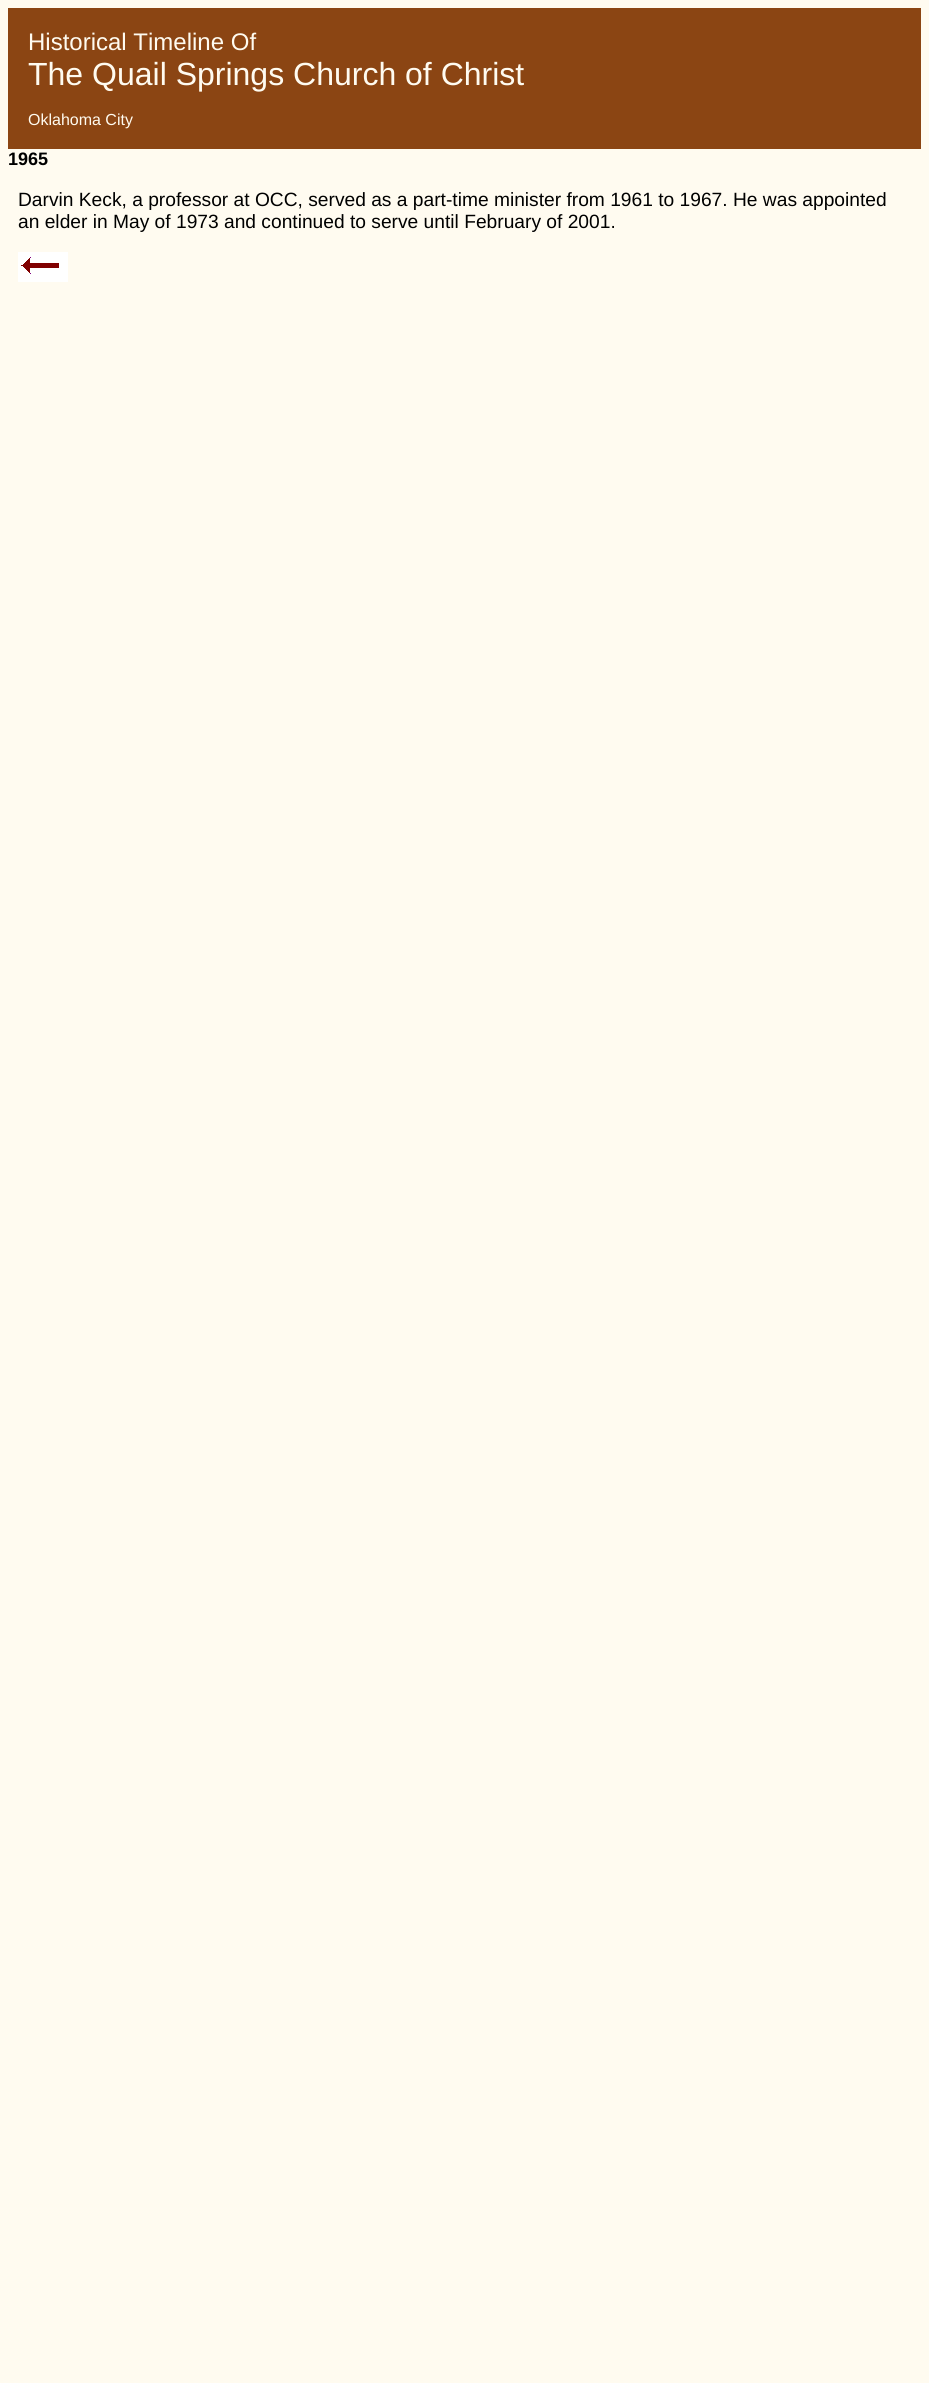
#include <cairo/cairo.h>
#include <math.h>
#include <stddef.h>

static cairo_t *cr;

static void rgb(unsigned color)
{
	cairo_set_source_rgb(cr, (color >> 16) / 255.0, (color >> 8 & 255) / 255.0, (color & 255) / 255.0);
}

static void image(const char *path, double x, double y, double w, double h)
{
	cairo_surface_t *image = cairo_image_surface_create_from_png(path);
	cairo_save(cr);
	cairo_set_source_surface(cr, image, x, y);
	cairo_rectangle(cr, x, y, w, h);
	cairo_fill(cr);
	cairo_restore(cr);
	cairo_surface_destroy(image);
}

int main(void) {
	cairo_surface_t *surface = cairo_image_surface_create(CAIRO_FORMAT_RGB24, 929, 2383);
	cr = cairo_create(surface);
	cairo_font_options_t *options = cairo_font_options_create();
	cairo_font_options_set_hint_metrics(options, CAIRO_HINT_METRICS_OFF);
	cairo_font_options_set_hint_style(options, CAIRO_HINT_STYLE_NONE);
	cairo_set_font_options(cr, options);
	cairo_set_miter_limit(cr, 4);
	rgb(0xfffbf0);
	cairo_paint(cr);
	rgb(0x8b4513);
	cairo_rectangle(cr, 8, 8, 913, 141);
	cairo_fill(cr);
	image("img/1.png", 18, 252, 50, 30);
	cairo_select_font_face(cr, "Liberation Sans", CAIRO_FONT_SLANT_NORMAL, CAIRO_FONT_WEIGHT_NORMAL);
	cairo_set_font_size(cr, 24);
	rgb(0xfffbf0);
	cairo_move_to(cr, 28, 50);
	cairo_show_text(cr, "Historical Timeline Of");
	cairo_set_font_size(cr, 32);
	cairo_move_to(cr, 28, 85);
	cairo_show_text(cr, "The Quail Springs Church of Christ");
	cairo_set_font_size(cr, 16);
	cairo_move_to(cr, 28, 125);
	cairo_show_text(cr, "Oklahoma City");
	cairo_select_font_face(cr, "Liberation Sans", CAIRO_FONT_SLANT_NORMAL, CAIRO_FONT_WEIGHT_BOLD);
	cairo_set_font_size(cr, 18);
	rgb(0x000000);
	cairo_move_to(cr, 8, 165);
	cairo_show_text(cr, "1965");
	cairo_select_font_face(cr, "Liberation Sans", CAIRO_FONT_SLANT_NORMAL, CAIRO_FONT_WEIGHT_NORMAL);
	cairo_set_font_size(cr, 19.2);
	cairo_move_to(cr, 18, 206);
	cairo_show_text(cr, "Darvin Keck, a professor at OCC, served as a part-time minister from 1961 to 1967. He was appointed");
	cairo_move_to(cr, 18, 228);
	cairo_show_text(cr, "an elder in May of 1973 and continued to serve until February of 2001.");
	cairo_surface_write_to_png(surface, "page.png");
	cairo_font_options_destroy(options);
	cairo_destroy(cr);
	cairo_surface_destroy(surface);
	return 0;
}
